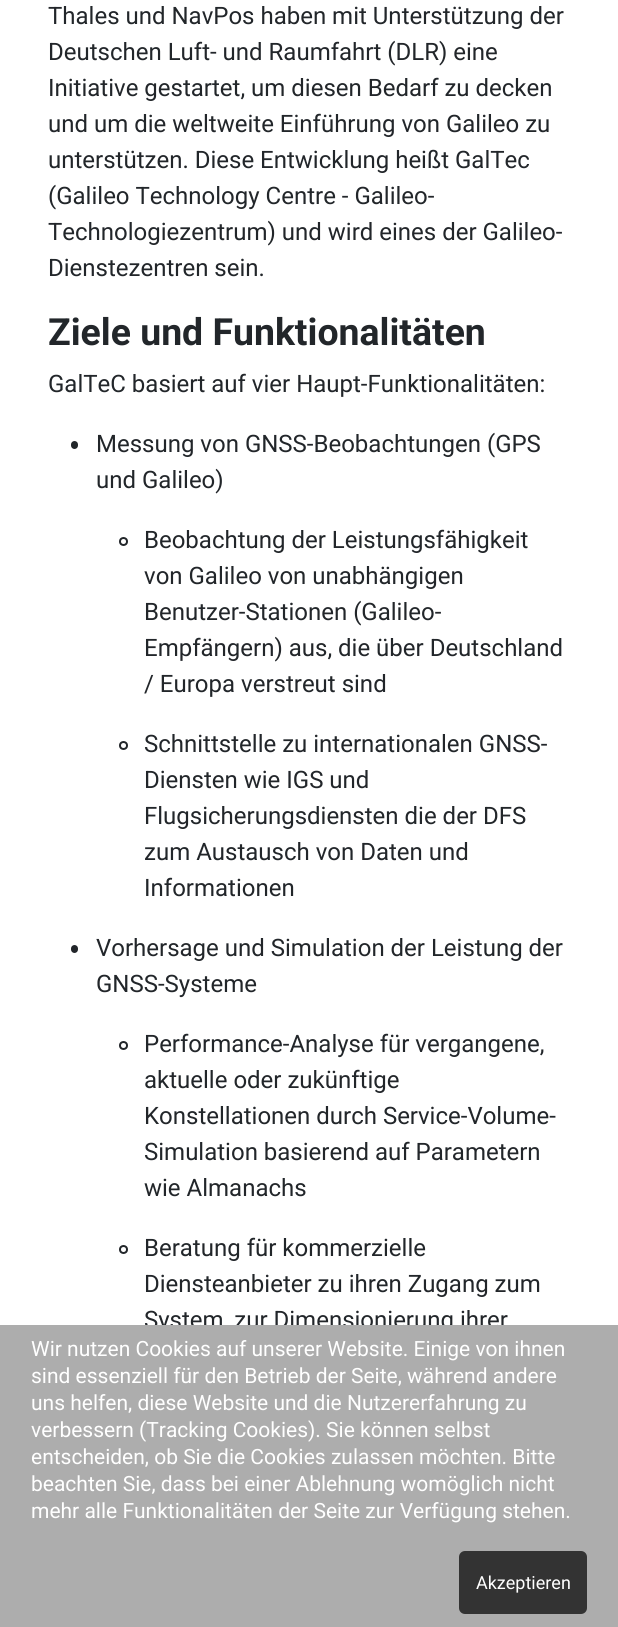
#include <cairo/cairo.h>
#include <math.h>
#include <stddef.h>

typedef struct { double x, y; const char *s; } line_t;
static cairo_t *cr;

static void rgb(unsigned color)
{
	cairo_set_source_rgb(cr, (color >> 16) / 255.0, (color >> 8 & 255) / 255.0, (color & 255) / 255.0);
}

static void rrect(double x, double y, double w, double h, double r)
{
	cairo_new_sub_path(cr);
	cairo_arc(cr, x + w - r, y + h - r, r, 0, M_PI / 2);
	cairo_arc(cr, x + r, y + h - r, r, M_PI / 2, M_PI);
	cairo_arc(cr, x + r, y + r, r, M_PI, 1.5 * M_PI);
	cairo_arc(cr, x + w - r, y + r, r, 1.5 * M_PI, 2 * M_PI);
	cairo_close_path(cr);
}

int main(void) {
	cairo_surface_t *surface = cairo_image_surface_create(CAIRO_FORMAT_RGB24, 618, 1627);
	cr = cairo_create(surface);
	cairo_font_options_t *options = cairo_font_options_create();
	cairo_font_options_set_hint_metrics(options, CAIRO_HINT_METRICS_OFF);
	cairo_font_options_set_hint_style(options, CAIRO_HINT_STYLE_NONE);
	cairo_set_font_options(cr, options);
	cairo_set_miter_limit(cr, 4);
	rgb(0xffffff);
	cairo_paint(cr);
	rgb(0x22262a);
	rrect(71, 441, 7, 8, 3.5);
	cairo_fill(cr);
	cairo_arc(cr, 123.5, 541.5, 3.5, 0, 2 * M_PI);
	cairo_stroke(cr);
	cairo_arc(cr, 123.5, 745.5, 3.5, 0, 2 * M_PI);
	cairo_stroke(cr);
	rrect(71, 945, 7, 8, 3.5);
	cairo_fill(cr);
	cairo_arc(cr, 123.5, 1045.5, 3.5, 0, 2 * M_PI);
	cairo_stroke(cr);
	cairo_arc(cr, 123.5, 1249.5, 3.5, 0, 2 * M_PI);
	cairo_stroke(cr);
	cairo_select_font_face(cr, "Roboto", CAIRO_FONT_SLANT_NORMAL, CAIRO_FONT_WEIGHT_NORMAL);
	cairo_set_font_size(cr, 24);
	{
		static const line_t items[] = {
			{48, 24, "Thales und NavPos haben mit Unterstützung der"},
			{48, 60, "Deutschen Luft- und Raumfahrt (DLR) eine"},
			{48, 96, "Initiative gestartet, um diesen Bedarf zu decken"},
			{48, 132, "und um die weltweite Einführung von Galileo zu"},
			{48, 168, "unterstützen. Diese Entwicklung heißt GalTec"},
			{48, 204, "(Galileo Technology Centre - Galileo-"},
			{48, 240, "Technologiezentrum) und wird eines der Galileo-"},
			{48, 276, "Dienstezentren sein."},
		};
		for (size_t i = 0; i < sizeof items / sizeof *items; i++) {
			cairo_move_to(cr, items[i].x, items[i].y);
			cairo_show_text(cr, items[i].s);
		}
	}
	cairo_select_font_face(cr, "Roboto", CAIRO_FONT_SLANT_NORMAL, CAIRO_FONT_WEIGHT_BOLD);
	cairo_set_font_size(cr, 37.4);
	cairo_move_to(cr, 48, 345);
	cairo_show_text(cr, "Ziele und Funktionalitäten");
	cairo_select_font_face(cr, "Roboto", CAIRO_FONT_SLANT_NORMAL, CAIRO_FONT_WEIGHT_NORMAL);
	cairo_set_font_size(cr, 24);
	{
		static const line_t items[] = {
			{48, 392, "GalTeC basiert auf vier Haupt-Funktionalitäten:"},
			{96, 452, "Messung von GNSS-Beobachtungen (GPS"},
			{96, 488, "und Galileo)"},
			{144, 548, "Beobachtung der Leistungsfähigkeit"},
			{144, 584, "von Galileo von unabhängigen"},
			{144, 620, "Benutzer-Stationen (Galileo-"},
			{144, 656, "Empfängern) aus, die über Deutschland"},
			{144, 692, "/ Europa verstreut sind"},
			{144, 752, "Schnittstelle zu internationalen GNSS-"},
			{144, 788, "Diensten wie IGS und"},
			{144, 824, "Flugsicherungsdiensten die der DFS"},
			{144, 860, "zum Austausch von Daten und"},
			{144, 896, "Informationen"},
			{96, 956, "Vorhersage und Simulation der Leistung der"},
			{96, 992, "GNSS-Systeme"},
			{144, 1052, "Performance-Analyse für vergangene,"},
			{144, 1088, "aktuelle oder zukünftige"},
			{144, 1124, "Konstellationen durch Service-Volume-"},
			{144, 1160, "Simulation basierend auf Parametern"},
			{144, 1196, "wie Almanachs"},
			{144, 1256, "Beratung für kommerzielle"},
			{144, 1292, "Diensteanbieter zu ihren Zugang zum"},
			{144, 1328, "System, zur Dimensionierung ihrer"},
		};
		for (size_t i = 0; i < sizeof items / sizeof *items; i++) {
			cairo_move_to(cr, items[i].x, items[i].y);
			cairo_show_text(cr, items[i].s);
		}
	}
	rgb(0xadadad);
	cairo_rectangle(cr, 0, 1325, 618, 302);
	cairo_fill(cr);
	cairo_set_font_size(cr, 21);
	rgb(0xffffff);
	{
		static const line_t items[] = {
			{31, 1356, "Wir nutzen Cookies auf unserer Website. Einige von ihnen"},
			{31, 1383, "sind essenziell für den Betrieb der Seite, während andere"},
			{31, 1410, "uns helfen, diese Website und die Nutzererfahrung zu"},
			{31, 1437, "verbessern (Tracking Cookies). Sie können selbst"},
			{31, 1464, "entscheiden, ob Sie die Cookies zulassen möchten. Bitte"},
			{31, 1491, "beachten Sie, dass bei einer Ablehnung womöglich nicht"},
			{31, 1518, "mehr alle Funktionalitäten der Seite zur Verfügung stehen."},
		};
		for (size_t i = 0; i < sizeof items / sizeof *items; i++) {
			cairo_move_to(cr, items[i].x, items[i].y);
			cairo_show_text(cr, items[i].s);
		}
	}
	rgb(0x333333);
	rrect(459, 1551, 128, 63, 6);
	cairo_fill(cr);
	cairo_set_font_size(cr, 18);
	rgb(0xffffff);
	cairo_move_to(cr, 476, 1589);
	cairo_show_text(cr, "Akzeptieren");
	cairo_surface_write_to_png(surface, "page.png");
	cairo_font_options_destroy(options);
	cairo_destroy(cr);
	cairo_surface_destroy(surface);
	return 0;
}
